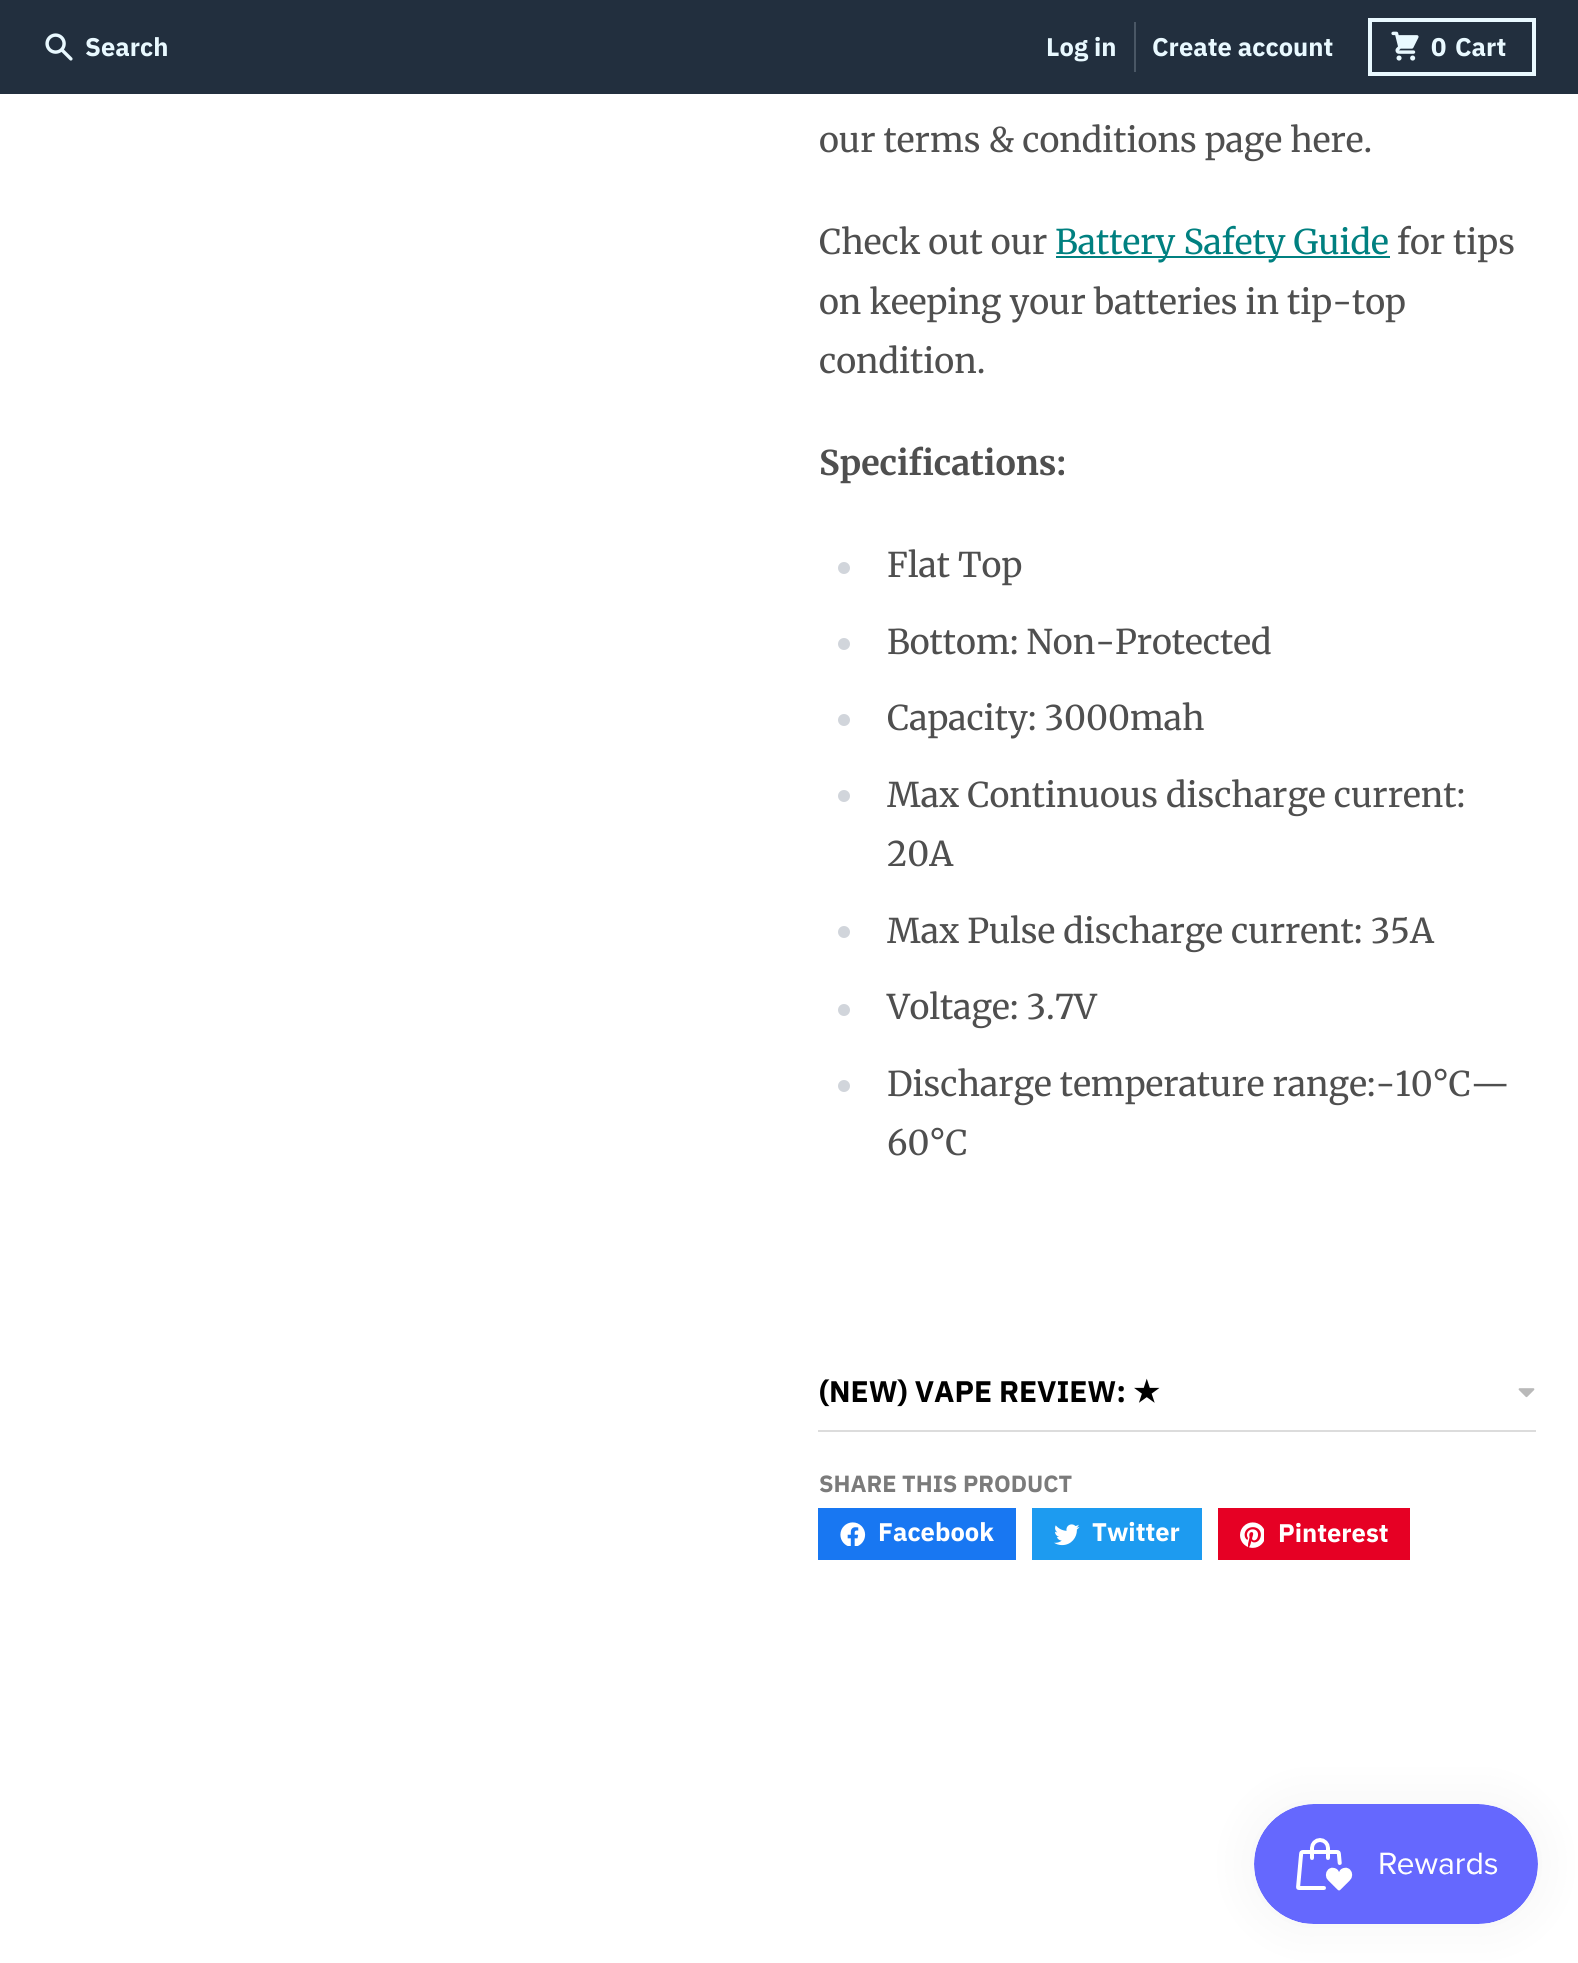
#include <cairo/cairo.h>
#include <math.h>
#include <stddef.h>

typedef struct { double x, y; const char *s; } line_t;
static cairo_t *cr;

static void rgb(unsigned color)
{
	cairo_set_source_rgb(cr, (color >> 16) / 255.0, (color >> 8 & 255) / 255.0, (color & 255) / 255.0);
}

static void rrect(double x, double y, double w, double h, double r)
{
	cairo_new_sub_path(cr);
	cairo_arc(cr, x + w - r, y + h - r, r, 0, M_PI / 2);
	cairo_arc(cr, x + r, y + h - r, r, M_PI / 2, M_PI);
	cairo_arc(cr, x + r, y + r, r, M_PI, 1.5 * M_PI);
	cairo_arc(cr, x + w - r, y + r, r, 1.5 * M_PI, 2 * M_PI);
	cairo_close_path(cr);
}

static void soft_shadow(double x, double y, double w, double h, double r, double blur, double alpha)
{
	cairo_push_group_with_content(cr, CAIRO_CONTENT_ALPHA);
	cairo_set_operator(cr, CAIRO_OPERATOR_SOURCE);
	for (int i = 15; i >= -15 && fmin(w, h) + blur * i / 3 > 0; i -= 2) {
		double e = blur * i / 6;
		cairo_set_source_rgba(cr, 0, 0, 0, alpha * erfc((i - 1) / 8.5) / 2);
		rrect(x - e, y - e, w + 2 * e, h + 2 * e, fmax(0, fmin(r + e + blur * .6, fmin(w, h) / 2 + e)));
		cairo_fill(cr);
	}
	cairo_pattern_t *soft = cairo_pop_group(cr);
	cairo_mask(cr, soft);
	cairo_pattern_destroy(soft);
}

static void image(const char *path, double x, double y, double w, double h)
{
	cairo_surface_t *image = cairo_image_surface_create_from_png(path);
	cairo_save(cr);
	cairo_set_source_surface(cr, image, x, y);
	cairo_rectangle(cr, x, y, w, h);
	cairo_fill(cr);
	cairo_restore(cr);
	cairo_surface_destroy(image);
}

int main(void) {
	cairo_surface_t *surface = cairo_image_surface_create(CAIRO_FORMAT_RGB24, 1578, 1963);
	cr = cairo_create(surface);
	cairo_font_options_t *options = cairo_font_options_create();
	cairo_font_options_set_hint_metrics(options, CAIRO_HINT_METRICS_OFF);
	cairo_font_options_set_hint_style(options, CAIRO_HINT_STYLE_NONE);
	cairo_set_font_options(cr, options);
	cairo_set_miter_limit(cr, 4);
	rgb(0xffffff);
	cairo_paint(cr);
	rgb(0x222f3e);
	cairo_rectangle(cr, 0, 0, 1578, 94);
	cairo_fill(cr);
	image("img/1.png", 45, 33, 28, 28);
	rgb(0x4a5765);
	cairo_rectangle(cr, 1134, 22, 2, 50);
	cairo_fill(cr);
	cairo_rectangle(cr, 1370, 20, 164, 54);
	rgb(0xe9f9ff);
	cairo_set_line_width(cr, 4);
	cairo_stroke(cr);
	image("img/2.png", 1391, 31, 28, 30);
	rgb(0x008080);
	cairo_rectangle(cr, 1056, 256, 334, 2);
	cairo_fill(cr);
	rgb(0xd1d5db);
	cairo_arc(cr, 844, 568, 6, 0, 2 * M_PI);
	cairo_fill(cr);
	cairo_arc(cr, 844, 644, 6, 0, 2 * M_PI);
	cairo_fill(cr);
	cairo_arc(cr, 844, 720, 6, 0, 2 * M_PI);
	cairo_fill(cr);
	cairo_arc(cr, 844, 796, 6, 0, 2 * M_PI);
	cairo_fill(cr);
	cairo_arc(cr, 844, 932, 6, 0, 2 * M_PI);
	cairo_fill(cr);
	cairo_arc(cr, 844, 1010, 6, 0, 2 * M_PI);
	cairo_fill(cr);
	cairo_arc(cr, 844, 1086, 6, 0, 2 * M_PI);
	cairo_fill(cr);
	rgb(0xdcdcdc);
	cairo_rectangle(cr, 818, 1430, 718, 2);
	cairo_fill(cr);
	image("img/3.png", 1518, 1388, 17, 10);
	rgb(0x1877f2);
	cairo_rectangle(cr, 818, 1508, 198, 52);
	cairo_fill(cr);
	image("img/4.png", 840, 1522, 26, 24);
	rgb(0x1d9bf0);
	cairo_rectangle(cr, 1032, 1508, 170, 52);
	cairo_fill(cr);
	image("img/5.png", 1054, 1524, 26, 22);
	rgb(0xe60024);
	cairo_rectangle(cr, 1218, 1508, 192, 52);
	cairo_fill(cr);
	image("img/6.png", 1240, 1522, 24, 26);
	rgb(0x000000);
	soft_shadow(1254, 1804, 284, 120, 60, 25, 0.05);
	image("img/7.png", 1254, 1804, 284, 120);
	cairo_select_font_face(cr, "IBM Plex Sans", CAIRO_FONT_SLANT_NORMAL, CAIRO_FONT_WEIGHT_BOLD);
	cairo_set_font_size(cr, 25.5);
	rgb(0xe9f9ff);
	{
		static const line_t items[] = {
			{85, 56, "Search"},
			{1046, 56, "Log in"},
			{1152, 56, "Create account"},
			{1431, 56, "0"},
			{1455, 56, "Cart"},
		};
		for (size_t i = 0; i < sizeof items / sizeof *items; i++) {
			cairo_move_to(cr, items[i].x, items[i].y);
			cairo_show_text(cr, items[i].s);
		}
	}
	cairo_select_font_face(cr, "Merriweather", CAIRO_FONT_SLANT_NORMAL, CAIRO_FONT_WEIGHT_NORMAL);
	cairo_set_font_size(cr, 34);
	rgb(0x4f4f4f);
	cairo_move_to(cr, 819, 152);
	cairo_show_text(cr, "our terms & conditions page here.");
	cairo_move_to(cr, 819, 254);
	cairo_show_text(cr, "Check out our");
	rgb(0x008080);
	cairo_move_to(cr, 1055, 254);
	cairo_show_text(cr, "Battery Safety Guide");
	rgb(0x4f4f4f);
	{
		static const line_t items[] = {
			{1397, 254, "for tips"},
			{819, 314, "on keeping your batteries in tip-top"},
			{819, 373, "condition."},
		};
		for (size_t i = 0; i < sizeof items / sizeof *items; i++) {
			cairo_move_to(cr, items[i].x, items[i].y);
			cairo_show_text(cr, items[i].s);
		}
	}
	cairo_select_font_face(cr, "Merriweather", CAIRO_FONT_SLANT_NORMAL, CAIRO_FONT_WEIGHT_BOLD);
	cairo_move_to(cr, 819, 475);
	cairo_show_text(cr, "Specifications:");
	cairo_select_font_face(cr, "Merriweather", CAIRO_FONT_SLANT_NORMAL, CAIRO_FONT_WEIGHT_NORMAL);
	{
		static const line_t items[] = {
			{887, 577, "Flat Top"},
			{887, 654, "Bottom: Non-Protected"},
			{887, 730, "Capacity: 3000mah"},
			{887, 807, "Max Continuous discharge current:"},
			{887, 866, "20A"},
			{887, 943, "Max Pulse discharge current: 35A"},
			{887, 1019, "Voltage: 3.7V"},
			{887, 1096, "Discharge temperature range:-10°C—"},
			{887, 1155, "60°C"},
		};
		for (size_t i = 0; i < sizeof items / sizeof *items; i++) {
			cairo_move_to(cr, items[i].x, items[i].y);
			cairo_show_text(cr, items[i].s);
		}
	}
	cairo_select_font_face(cr, "IBM Plex Sans", CAIRO_FONT_SLANT_NORMAL, CAIRO_FONT_WEIGHT_BOLD);
	cairo_set_font_size(cr, 29.75);
	rgb(0x000000);
	cairo_move_to(cr, 819, 1402);
	cairo_show_text(cr, "(NEW) VAPE REVIEW:");
	cairo_select_font_face(cr, "DejaVu Sans", CAIRO_FONT_SLANT_NORMAL, CAIRO_FONT_WEIGHT_BOLD);
	cairo_move_to(cr, 1133, 1402);
	cairo_show_text(cr, "★");
	cairo_select_font_face(cr, "IBM Plex Sans", CAIRO_FONT_SLANT_NORMAL, CAIRO_FONT_WEIGHT_BOLD);
	cairo_set_font_size(cr, 23.4);
	rgb(0x7b7b7b);
	cairo_move_to(cr, 819, 1492);
	cairo_show_text(cr, "SHARE THIS PRODUCT");
	cairo_set_font_size(cr, 25.5);
	rgb(0xffffff);
	{
		static const line_t items[] = {
			{878, 1541, "Facebook"},
			{1092, 1541, "Twitter"},
			{1278, 1542, "Pinterest"},
		};
		for (size_t i = 0; i < sizeof items / sizeof *items; i++) {
			cairo_move_to(cr, items[i].x, items[i].y);
			cairo_show_text(cr, items[i].s);
		}
	}
	cairo_surface_write_to_png(surface, "page.png");
	cairo_font_options_destroy(options);
	cairo_destroy(cr);
	cairo_surface_destroy(surface);
	return 0;
}
